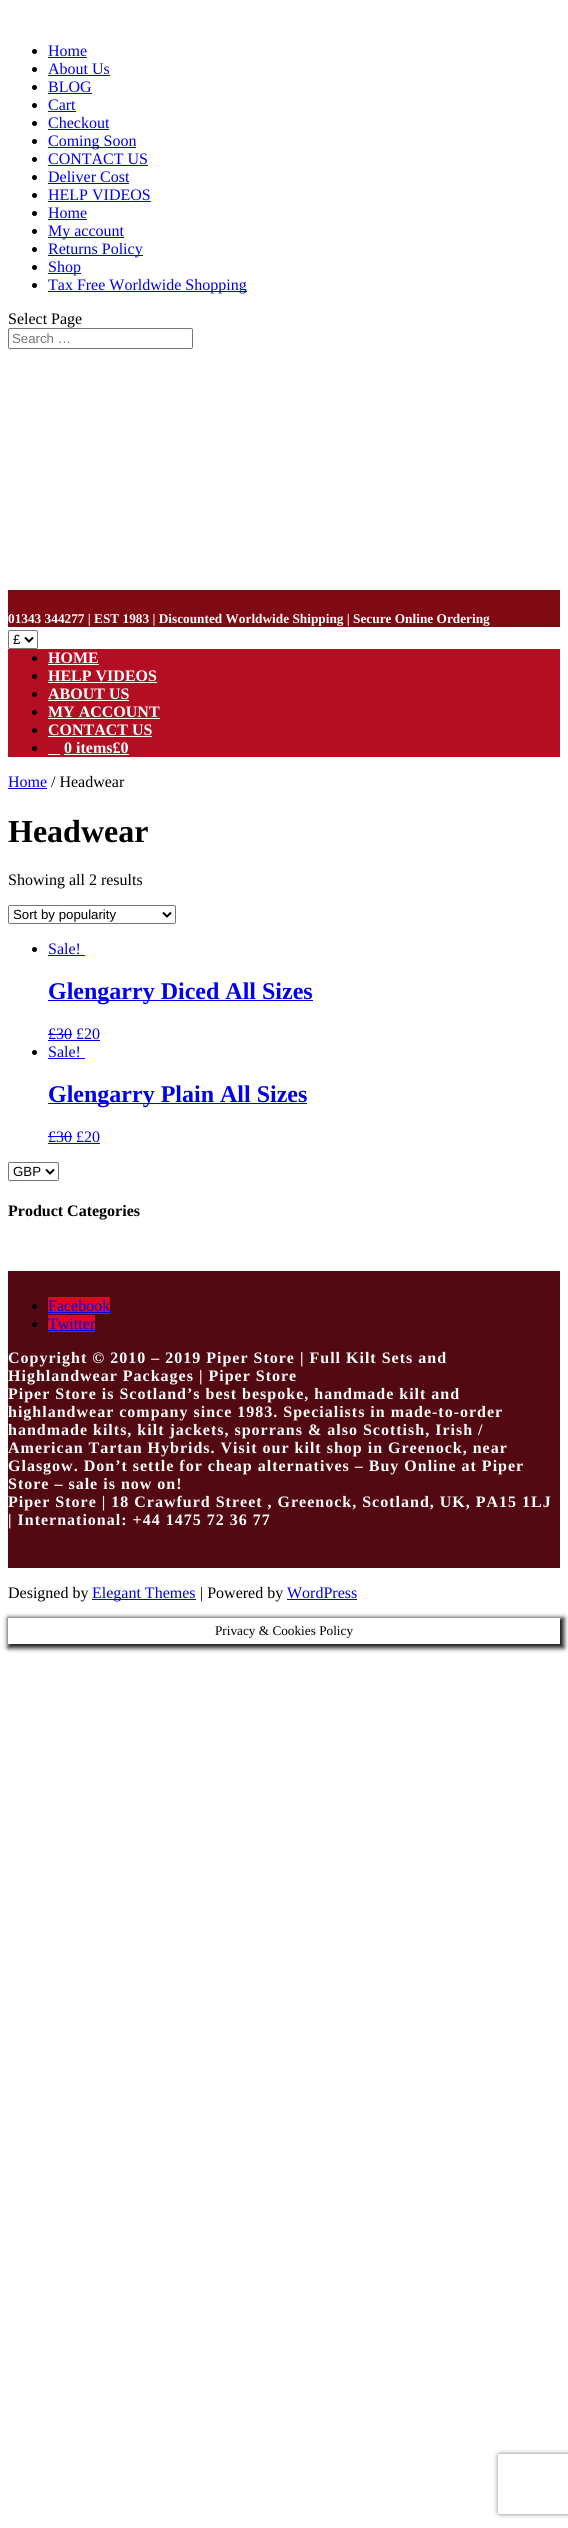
#include <cairo/cairo.h>
#include <math.h>
#include <stddef.h>

typedef struct { double x, y; const char *s; } line_t;
typedef struct { double x, y, w, h; unsigned color; } box_t;
static cairo_t *cr;

static void rgb(unsigned color)
{
	cairo_set_source_rgb(cr, (color >> 16) / 255.0, (color >> 8 & 255) / 255.0, (color & 255) / 255.0);
}

static void tracked(double x, double y, const char *s, double letter, double word)
{
	cairo_move_to(cr, x, y);
	while (*s) {
		char ch[5] = {0};
		int n = 0;
		do ch[n++] = *s++; while ((*s & 0xC0) == 0x80);
		cairo_show_text(cr, ch);
		cairo_rel_move_to(cr, letter + word * (*ch == ' '), 0);
	}
}

static void rrect(double x, double y, double w, double h, double r)
{
	cairo_new_sub_path(cr);
	cairo_arc(cr, x + w - r, y + h - r, r, 0, M_PI / 2);
	cairo_arc(cr, x + r, y + h - r, r, M_PI / 2, M_PI);
	cairo_arc(cr, x + r, y + r, r, M_PI, 1.5 * M_PI);
	cairo_arc(cr, x + w - r, y + r, r, 1.5 * M_PI, 2 * M_PI);
	cairo_close_path(cr);
}

static void soft_shadow(double x, double y, double w, double h, double r, double blur, double alpha)
{
	cairo_push_group_with_content(cr, CAIRO_CONTENT_ALPHA);
	cairo_set_operator(cr, CAIRO_OPERATOR_SOURCE);
	for (int i = 15; i >= -15 && fmin(w, h) + blur * i / 3 > 0; i -= 2) {
		double e = blur * i / 6;
		cairo_set_source_rgba(cr, 0, 0, 0, alpha * erfc((i - 1) / 8.5) / 2);
		rrect(x - e, y - e, w + 2 * e, h + 2 * e, fmax(0, fmin(r + e + blur * .6, fmin(w, h) / 2 + e)));
		cairo_fill(cr);
	}
	cairo_pattern_t *soft = cairo_pop_group(cr);
	cairo_mask(cr, soft);
	cairo_pattern_destroy(soft);
}

int main(void) {
	cairo_surface_t *surface = cairo_image_surface_create(CAIRO_FORMAT_RGB24, 568, 2528);
	cr = cairo_create(surface);
	cairo_font_options_t *options = cairo_font_options_create();
	cairo_font_options_set_hint_metrics(options, CAIRO_HINT_METRICS_OFF);
	cairo_font_options_set_hint_style(options, CAIRO_HINT_STYLE_NONE);
	cairo_set_font_options(cr, options);
	cairo_set_miter_limit(cr, 4);
	rgb(0xffffff);
	cairo_paint(cr);
	rgb(0x000000);
	cairo_arc(cr, 34.5, 51.5, 2.5, 0, 2 * M_PI);
	cairo_fill(cr);
	rgb(0x0000ee);
	cairo_rectangle(cr, 48, 57, 39, 1);
	cairo_fill(cr);
	rgb(0x000000);
	cairo_arc(cr, 34.5, 69.5, 2.5, 0, 2 * M_PI);
	cairo_fill(cr);
	rgb(0x0000ee);
	cairo_rectangle(cr, 48, 75, 62, 1);
	cairo_fill(cr);
	rgb(0x000000);
	cairo_arc(cr, 34.5, 87.5, 2.5, 0, 2 * M_PI);
	cairo_fill(cr);
	rgb(0x0000ee);
	cairo_rectangle(cr, 48, 93, 44, 1);
	cairo_fill(cr);
	rgb(0x000000);
	cairo_arc(cr, 34.5, 105.5, 2.5, 0, 2 * M_PI);
	cairo_fill(cr);
	rgb(0x0000ee);
	cairo_rectangle(cr, 48, 111, 28, 1);
	cairo_fill(cr);
	rgb(0x000000);
	cairo_arc(cr, 34.5, 123.5, 2.5, 0, 2 * M_PI);
	cairo_fill(cr);
	rgb(0x0000ee);
	cairo_rectangle(cr, 48, 129, 61, 1);
	cairo_fill(cr);
	rgb(0x000000);
	cairo_arc(cr, 34.5, 141.5, 2.5, 0, 2 * M_PI);
	cairo_fill(cr);
	rgb(0x0000ee);
	cairo_rectangle(cr, 48, 147, 88, 1);
	cairo_fill(cr);
	rgb(0x000000);
	cairo_arc(cr, 34.5, 159.5, 2.5, 0, 2 * M_PI);
	cairo_fill(cr);
	rgb(0x0000ee);
	cairo_rectangle(cr, 48, 165, 100, 1);
	cairo_fill(cr);
	rgb(0x000000);
	cairo_arc(cr, 34.5, 177.5, 2.5, 0, 2 * M_PI);
	cairo_fill(cr);
	rgb(0x0000ee);
	cairo_rectangle(cr, 48, 183, 81, 1);
	cairo_fill(cr);
	rgb(0x000000);
	cairo_arc(cr, 34.5, 195.5, 2.5, 0, 2 * M_PI);
	cairo_fill(cr);
	rgb(0x0000ee);
	cairo_rectangle(cr, 48, 201, 103, 1);
	cairo_fill(cr);
	rgb(0x000000);
	cairo_arc(cr, 34.5, 213.5, 2.5, 0, 2 * M_PI);
	cairo_fill(cr);
	rgb(0x0000ee);
	cairo_rectangle(cr, 48, 219, 39, 1);
	cairo_fill(cr);
	rgb(0x000000);
	cairo_arc(cr, 34.5, 231.5, 2.5, 0, 2 * M_PI);
	cairo_fill(cr);
	rgb(0x0000ee);
	cairo_rectangle(cr, 48, 237, 76, 1);
	cairo_fill(cr);
	rgb(0x000000);
	cairo_arc(cr, 34.5, 249.5, 2.5, 0, 2 * M_PI);
	cairo_fill(cr);
	rgb(0x0000ee);
	cairo_rectangle(cr, 48, 255, 95, 1);
	cairo_fill(cr);
	rgb(0x000000);
	cairo_arc(cr, 34.5, 267.5, 2.5, 0, 2 * M_PI);
	cairo_fill(cr);
	rgb(0x0000ee);
	cairo_rectangle(cr, 48, 273, 33, 1);
	cairo_fill(cr);
	rgb(0x000000);
	cairo_arc(cr, 34.5, 285.5, 2.5, 0, 2 * M_PI);
	cairo_fill(cr);
	rgb(0x0000ee);
	cairo_rectangle(cr, 48, 291, 199, 1);
	cairo_fill(cr);
	rrect(8.5, 328.5, 184, 20, 1.5);
	rgb(0x767676);
	cairo_set_line_width(cr, 1);
	cairo_stroke(cr);
	rgb(0x7f0a13);
	cairo_rectangle(cr, 8, 590, 552, 37);
	cairo_fill(cr);
	rrect(8.5, 630.5, 29, 18, 1.5);
	rgb(0x767676);
	cairo_stroke(cr);
	cairo_new_path(cr);
	cairo_move_to(cr, 25, 637.5);
	cairo_line_to(cr, 29, 641.5);
	cairo_line_to(cr, 33, 637.5);
	rgb(0x000000);
	cairo_set_line_width(cr, 2);
	cairo_stroke(cr);
	rgb(0xb30e21);
	cairo_rectangle(cr, 8, 649, 552, 108);
	cairo_fill(cr);
	rgb(0x000000);
	cairo_arc(cr, 34.5, 658.5, 2.5, 0, 2 * M_PI);
	cairo_fill(cr);
	rgb(0xffffff);
	cairo_rectangle(cr, 48, 664, 51, 1);
	cairo_fill(cr);
	rgb(0x000000);
	cairo_arc(cr, 34.5, 676.5, 2.5, 0, 2 * M_PI);
	cairo_fill(cr);
	rgb(0xffffff);
	cairo_rectangle(cr, 48, 682, 109, 1);
	cairo_fill(cr);
	rgb(0x000000);
	cairo_arc(cr, 34.5, 694.5, 2.5, 0, 2 * M_PI);
	cairo_fill(cr);
	rgb(0xffffff);
	cairo_rectangle(cr, 48, 700, 81, 1);
	cairo_fill(cr);
	rgb(0x000000);
	cairo_arc(cr, 34.5, 712.5, 2.5, 0, 2 * M_PI);
	cairo_fill(cr);
	rgb(0xffffff);
	cairo_rectangle(cr, 48, 718, 112, 1);
	cairo_fill(cr);
	rgb(0x000000);
	cairo_arc(cr, 34.5, 730.5, 2.5, 0, 2 * M_PI);
	cairo_fill(cr);
	rgb(0xffffff);
	cairo_rectangle(cr, 48, 736, 104, 1);
	cairo_fill(cr);
	rgb(0x000000);
	cairo_arc(cr, 34.5, 748.5, 2.5, 0, 2 * M_PI);
	cairo_fill(cr);
	{
		static const box_t items[] = {
			{48, 754, 12, 1, 0xffffff},
			{64, 754, 65, 1, 0xffffff},
			{8, 788, 39, 1, 0x0000ee},
		};
		for (size_t i = 0; i < sizeof items / sizeof *items; i++) {
			rgb(items[i].color);
			cairo_rectangle(cr, items[i].x, items[i].y, items[i].w, items[i].h);
			cairo_fill(cr);
		}
	}
	rrect(8.5, 905.5, 167, 18, 1.5);
	rgb(0x767676);
	cairo_set_line_width(cr, 1);
	cairo_stroke(cr);
	cairo_new_path(cr);
	cairo_move_to(cr, 163, 912.5);
	cairo_line_to(cr, 167, 916.5);
	cairo_line_to(cr, 171, 912.5);
	rgb(0x000000);
	cairo_set_line_width(cr, 2);
	cairo_stroke(cr);
	cairo_arc(cr, 34.5, 949.5, 2.5, 0, 2 * M_PI);
	cairo_fill(cr);
	{
		static const box_t items[] = {
			{48, 955, 37, 1, 0x0000ee},
			{48, 1000, 265, 1, 0x0000ee},
			{48, 1040, 52, 1, 0x0000ee},
			{48, 1034, 24, 1, 0x0000ee},
		};
		for (size_t i = 0; i < sizeof items / sizeof *items; i++) {
			rgb(items[i].color);
			cairo_rectangle(cr, items[i].x, items[i].y, items[i].w, items[i].h);
			cairo_fill(cr);
		}
	}
	rgb(0x000000);
	cairo_arc(cr, 34.5, 1052.5, 2.5, 0, 2 * M_PI);
	cairo_fill(cr);
	{
		static const box_t items[] = {
			{48, 1058, 37, 1, 0x0000ee},
			{48, 1103, 259, 1, 0x0000ee},
			{48, 1143, 52, 1, 0x0000ee},
			{48, 1136, 24, 1, 0x0000ee},
		};
		for (size_t i = 0; i < sizeof items / sizeof *items; i++) {
			rgb(items[i].color);
			cairo_rectangle(cr, items[i].x, items[i].y, items[i].w, items[i].h);
			cairo_fill(cr);
		}
	}
	rrect(8.5, 1162.5, 50, 18, 1.5);
	rgb(0x767676);
	cairo_set_line_width(cr, 1);
	cairo_stroke(cr);
	cairo_new_path(cr);
	cairo_move_to(cr, 46, 1169.5);
	cairo_line_to(cr, 50, 1173.5);
	cairo_line_to(cr, 54, 1169.5);
	rgb(0x000000);
	cairo_set_line_width(cr, 2);
	cairo_stroke(cr);
	rgb(0x520911);
	cairo_rectangle(cr, 8, 1271, 552, 297);
	cairo_fill(cr);
	rgb(0x000000);
	cairo_arc(cr, 34.5, 1306.5, 2.5, 0, 2 * M_PI);
	cairo_fill(cr);
	rgb(0xde091e);
	cairo_rectangle(cr, 48, 1297, 62, 17);
	cairo_fill(cr);
	rgb(0x0000ee);
	cairo_rectangle(cr, 48, 1312, 62, 1);
	cairo_fill(cr);
	rgb(0x000000);
	cairo_arc(cr, 34.5, 1324.5, 2.5, 0, 2 * M_PI);
	cairo_fill(cr);
	{
		static const box_t items[] = {
			{48, 1315, 47, 17, 0xde091e},
			{48, 1330, 47, 1, 0x0000ee},
			{92, 1599, 104, 1, 0x0000ee},
			{287, 1599, 70, 1, 0x0000ee},
		};
		for (size_t i = 0; i < sizeof items / sizeof *items; i++) {
			rgb(items[i].color);
			cairo_rectangle(cr, items[i].x, items[i].y, items[i].w, items[i].h);
			cairo_fill(cr);
		}
	}
	cairo_save(cr);
	cairo_set_fill_rule(cr, CAIRO_FILL_RULE_EVEN_ODD);
	cairo_new_path(cr);
	cairo_move_to(cr, 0, 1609);
	cairo_line_to(cr, 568, 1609);
	cairo_line_to(cr, 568, 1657);
	cairo_line_to(cr, 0, 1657);
	cairo_close_path(cr);
	cairo_move_to(cr, 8, 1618);
	cairo_line_to(cr, 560, 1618);
	cairo_line_to(cr, 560, 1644);
	cairo_line_to(cr, 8, 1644);
	cairo_close_path(cr);
	cairo_clip(cr);
	rgb(0x161616);
	soft_shadow(8, 1618, 556, 30, 0, 2.5, 1);
	cairo_restore(cr);
	cairo_save(cr);
	cairo_set_fill_rule(cr, CAIRO_FILL_RULE_EVEN_ODD);
	cairo_new_path(cr);
	cairo_move_to(cr, 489, 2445);
	cairo_line_to(cr, 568, 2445);
	cairo_line_to(cr, 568, 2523);
	cairo_line_to(cr, 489, 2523);
	cairo_close_path(cr);
	cairo_move_to(cr, 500, 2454);
	cairo_line_to(cr, 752, 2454);
	cairo_curve_to(cr, 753, 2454, 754, 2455, 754, 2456);
	cairo_line_to(cr, 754, 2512);
	cairo_curve_to(cr, 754, 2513, 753, 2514, 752, 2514);
	cairo_line_to(cr, 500, 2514);
	cairo_curve_to(cr, 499, 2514, 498, 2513, 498, 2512);
	cairo_line_to(cr, 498, 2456);
	cairo_curve_to(cr, 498, 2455, 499, 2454, 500, 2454);
	cairo_close_path(cr);
	cairo_clip(cr);
	rgb(0x808080);
	soft_shadow(498, 2454, 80, 60, 2, 2.5, 1);
	cairo_restore(cr);
	cairo_select_font_face(cr, "Liberation Serif", CAIRO_FONT_SLANT_NORMAL, CAIRO_FONT_WEIGHT_NORMAL);
	cairo_set_font_size(cr, 16);
	{
		static const line_t items[] = {
			{48, 56, "Home"},
			{48, 74, "About Us"},
			{48, 92, "BLOG"},
			{48, 110, "Cart"},
			{48, 128, "Checkout"},
			{48, 146, "Coming Soon"},
			{48, 164, "CONTACT US"},
			{48, 182, "Deliver Cost"},
			{48, 200, "HELP VIDEOS"},
			{48, 218, "Home"},
			{48, 236, "My account"},
			{48, 254, "Returns Policy"},
			{48, 272, "Shop"},
			{48, 290, "Tax Free Worldwide Shopping"},
		};
		for (size_t i = 0; i < sizeof items / sizeof *items; i++) {
			cairo_move_to(cr, items[i].x, items[i].y);
			cairo_show_text(cr, items[i].s);
		}
	}
	rgb(0x000000);
	cairo_move_to(cr, 8, 324);
	cairo_show_text(cr, "Select Page");
	cairo_select_font_face(cr, "Liberation Sans", CAIRO_FONT_SLANT_NORMAL, CAIRO_FONT_WEIGHT_NORMAL);
	cairo_set_font_size(cr, 13.25);
	rgb(0x757575);
	cairo_move_to(cr, 12, 343);
	cairo_show_text(cr, "Search …");
	cairo_select_font_face(cr, "Liberation Serif", CAIRO_FONT_SLANT_NORMAL, CAIRO_FONT_WEIGHT_BOLD);
	cairo_set_font_size(cr, 13.3);
	rgb(0xffffff);
	cairo_move_to(cr, 8, 623);
	cairo_show_text(cr, "01343 344277 | EST 1983 | Discounted Worldwide Shipping | Secure Online Ordering");
	cairo_select_font_face(cr, "Liberation Sans", CAIRO_FONT_SLANT_NORMAL, CAIRO_FONT_WEIGHT_NORMAL);
	cairo_set_font_size(cr, 13.25);
	rgb(0x000000);
	cairo_move_to(cr, 13, 644);
	cairo_show_text(cr, "£");
	cairo_select_font_face(cr, "Liberation Serif", CAIRO_FONT_SLANT_NORMAL, CAIRO_FONT_WEIGHT_BOLD);
	cairo_set_font_size(cr, 16);
	rgb(0xffffff);
	{
		static const line_t items[] = {
			{48, 663, "HOME"},
			{48, 681, "HELP VIDEOS"},
			{48, 699, "ABOUT US"},
			{48, 717, "MY ACCOUNT"},
			{48, 735, "CONTACT US"},
			{64, 753, "0 items£0"},
		};
		for (size_t i = 0; i < sizeof items / sizeof *items; i++) {
			cairo_move_to(cr, items[i].x, items[i].y);
			cairo_show_text(cr, items[i].s);
		}
	}
	cairo_select_font_face(cr, "Liberation Serif", CAIRO_FONT_SLANT_NORMAL, CAIRO_FONT_WEIGHT_NORMAL);
	rgb(0x0000ee);
	cairo_move_to(cr, 8, 787);
	cairo_show_text(cr, "Home");
	rgb(0x000000);
	cairo_move_to(cr, 51, 787);
	cairo_show_text(cr, "/ Headwear");
	cairo_select_font_face(cr, "Liberation Serif", CAIRO_FONT_SLANT_NORMAL, CAIRO_FONT_WEIGHT_BOLD);
	cairo_set_font_size(cr, 32);
	cairo_move_to(cr, 8, 842);
	cairo_show_text(cr, "Headwear");
	cairo_select_font_face(cr, "Liberation Serif", CAIRO_FONT_SLANT_NORMAL, CAIRO_FONT_WEIGHT_NORMAL);
	cairo_set_font_size(cr, 16);
	cairo_move_to(cr, 8, 885);
	cairo_show_text(cr, "Showing all 2 results");
	cairo_select_font_face(cr, "Liberation Sans", CAIRO_FONT_SLANT_NORMAL, CAIRO_FONT_WEIGHT_NORMAL);
	cairo_set_font_size(cr, 13.25);
	cairo_move_to(cr, 13, 919);
	cairo_show_text(cr, "Sort by popularity");
	cairo_select_font_face(cr, "Liberation Serif", CAIRO_FONT_SLANT_NORMAL, CAIRO_FONT_WEIGHT_NORMAL);
	cairo_set_font_size(cr, 16);
	rgb(0x0000ee);
	cairo_move_to(cr, 48, 954);
	cairo_show_text(cr, "Sale!");
	cairo_select_font_face(cr, "Liberation Serif", CAIRO_FONT_SLANT_NORMAL, CAIRO_FONT_WEIGHT_BOLD);
	cairo_set_font_size(cr, 24);
	cairo_move_to(cr, 48, 999);
	cairo_show_text(cr, "Glengarry Diced All Sizes");
	cairo_select_font_face(cr, "Liberation Serif", CAIRO_FONT_SLANT_NORMAL, CAIRO_FONT_WEIGHT_NORMAL);
	cairo_set_font_size(cr, 16);
	cairo_move_to(cr, 48, 1039);
	cairo_show_text(cr, "£30 £20");
	cairo_move_to(cr, 48, 1057);
	cairo_show_text(cr, "Sale!");
	cairo_select_font_face(cr, "Liberation Serif", CAIRO_FONT_SLANT_NORMAL, CAIRO_FONT_WEIGHT_BOLD);
	cairo_set_font_size(cr, 24);
	cairo_move_to(cr, 48, 1102);
	cairo_show_text(cr, "Glengarry Plain All Sizes");
	cairo_select_font_face(cr, "Liberation Serif", CAIRO_FONT_SLANT_NORMAL, CAIRO_FONT_WEIGHT_NORMAL);
	cairo_set_font_size(cr, 16);
	cairo_move_to(cr, 48, 1142);
	cairo_show_text(cr, "£30 £20");
	cairo_select_font_face(cr, "Liberation Sans", CAIRO_FONT_SLANT_NORMAL, CAIRO_FONT_WEIGHT_NORMAL);
	cairo_set_font_size(cr, 13.25);
	rgb(0x000000);
	cairo_move_to(cr, 13, 1176);
	cairo_show_text(cr, "GBP");
	cairo_select_font_face(cr, "Liberation Serif", CAIRO_FONT_SLANT_NORMAL, CAIRO_FONT_WEIGHT_BOLD);
	cairo_set_font_size(cr, 16);
	cairo_move_to(cr, 8, 1216);
	cairo_show_text(cr, "Product Categories");
	cairo_select_font_face(cr, "Liberation Serif", CAIRO_FONT_SLANT_NORMAL, CAIRO_FONT_WEIGHT_NORMAL);
	rgb(0x0000ee);
	cairo_move_to(cr, 48, 1311);
	cairo_show_text(cr, "Facebook");
	cairo_move_to(cr, 48, 1329);
	cairo_show_text(cr, "Twitter");
	cairo_select_font_face(cr, "Liberation Serif", CAIRO_FONT_SLANT_NORMAL, CAIRO_FONT_WEIGHT_BOLD);
	rgb(0xffffff);
	{
		static const line_t items[] = {
			{8, 1363, "Copyright © 2010 – 2019 Piper Store | Full Kilt Sets and"},
			{8, 1381, "Highlandwear Packages | Piper Store"},
			{8, 1399, "Piper Store is Scotland’s best bespoke, handmade kilt and"},
			{8, 1417, "highlandwear company since 1983. Specialists in made-to-order"},
			{8, 1435, "handmade kilts, kilt jackets, sporrans & also Scottish, Irish /"},
			{8, 1453, "American Tartan Hybrids. Visit our kilt shop in Greenock, near"},
			{8, 1471, "Glasgow. Don’t settle for cheap alternatives – Buy Online at Piper"},
			{8, 1489, "Store – sale is now on!"},
			{8, 1507, "Piper Store | 18 Crawfurd Street , Greenock, Scotland, UK, PA15 1LJ"},
			{8, 1525, "| International: +44 1475 72 36 77"},
		};
		for (size_t i = 0; i < sizeof items / sizeof *items; i++) {
			tracked(items[i].x, items[i].y, items[i].s, 1, 0);
		}
	}
	cairo_select_font_face(cr, "Liberation Serif", CAIRO_FONT_SLANT_NORMAL, CAIRO_FONT_WEIGHT_NORMAL);
	rgb(0x000000);
	cairo_move_to(cr, 8, 1598);
	cairo_show_text(cr, "Designed by");
	rgb(0x0000ee);
	cairo_move_to(cr, 92, 1598);
	cairo_show_text(cr, "Elegant Themes");
	rgb(0x000000);
	cairo_move_to(cr, 200, 1598);
	cairo_show_text(cr, "| Powered by");
	rgb(0x0000ee);
	cairo_move_to(cr, 287, 1598);
	cairo_show_text(cr, "WordPress");
	cairo_set_font_size(cr, 13.25);
	rgb(0x000000);
	cairo_move_to(cr, 215, 1635);
	cairo_show_text(cr, "Privacy & Cookies Policy");
	cairo_surface_write_to_png(surface, "page.png");
	cairo_font_options_destroy(options);
	cairo_destroy(cr);
	cairo_surface_destroy(surface);
	return 0;
}
